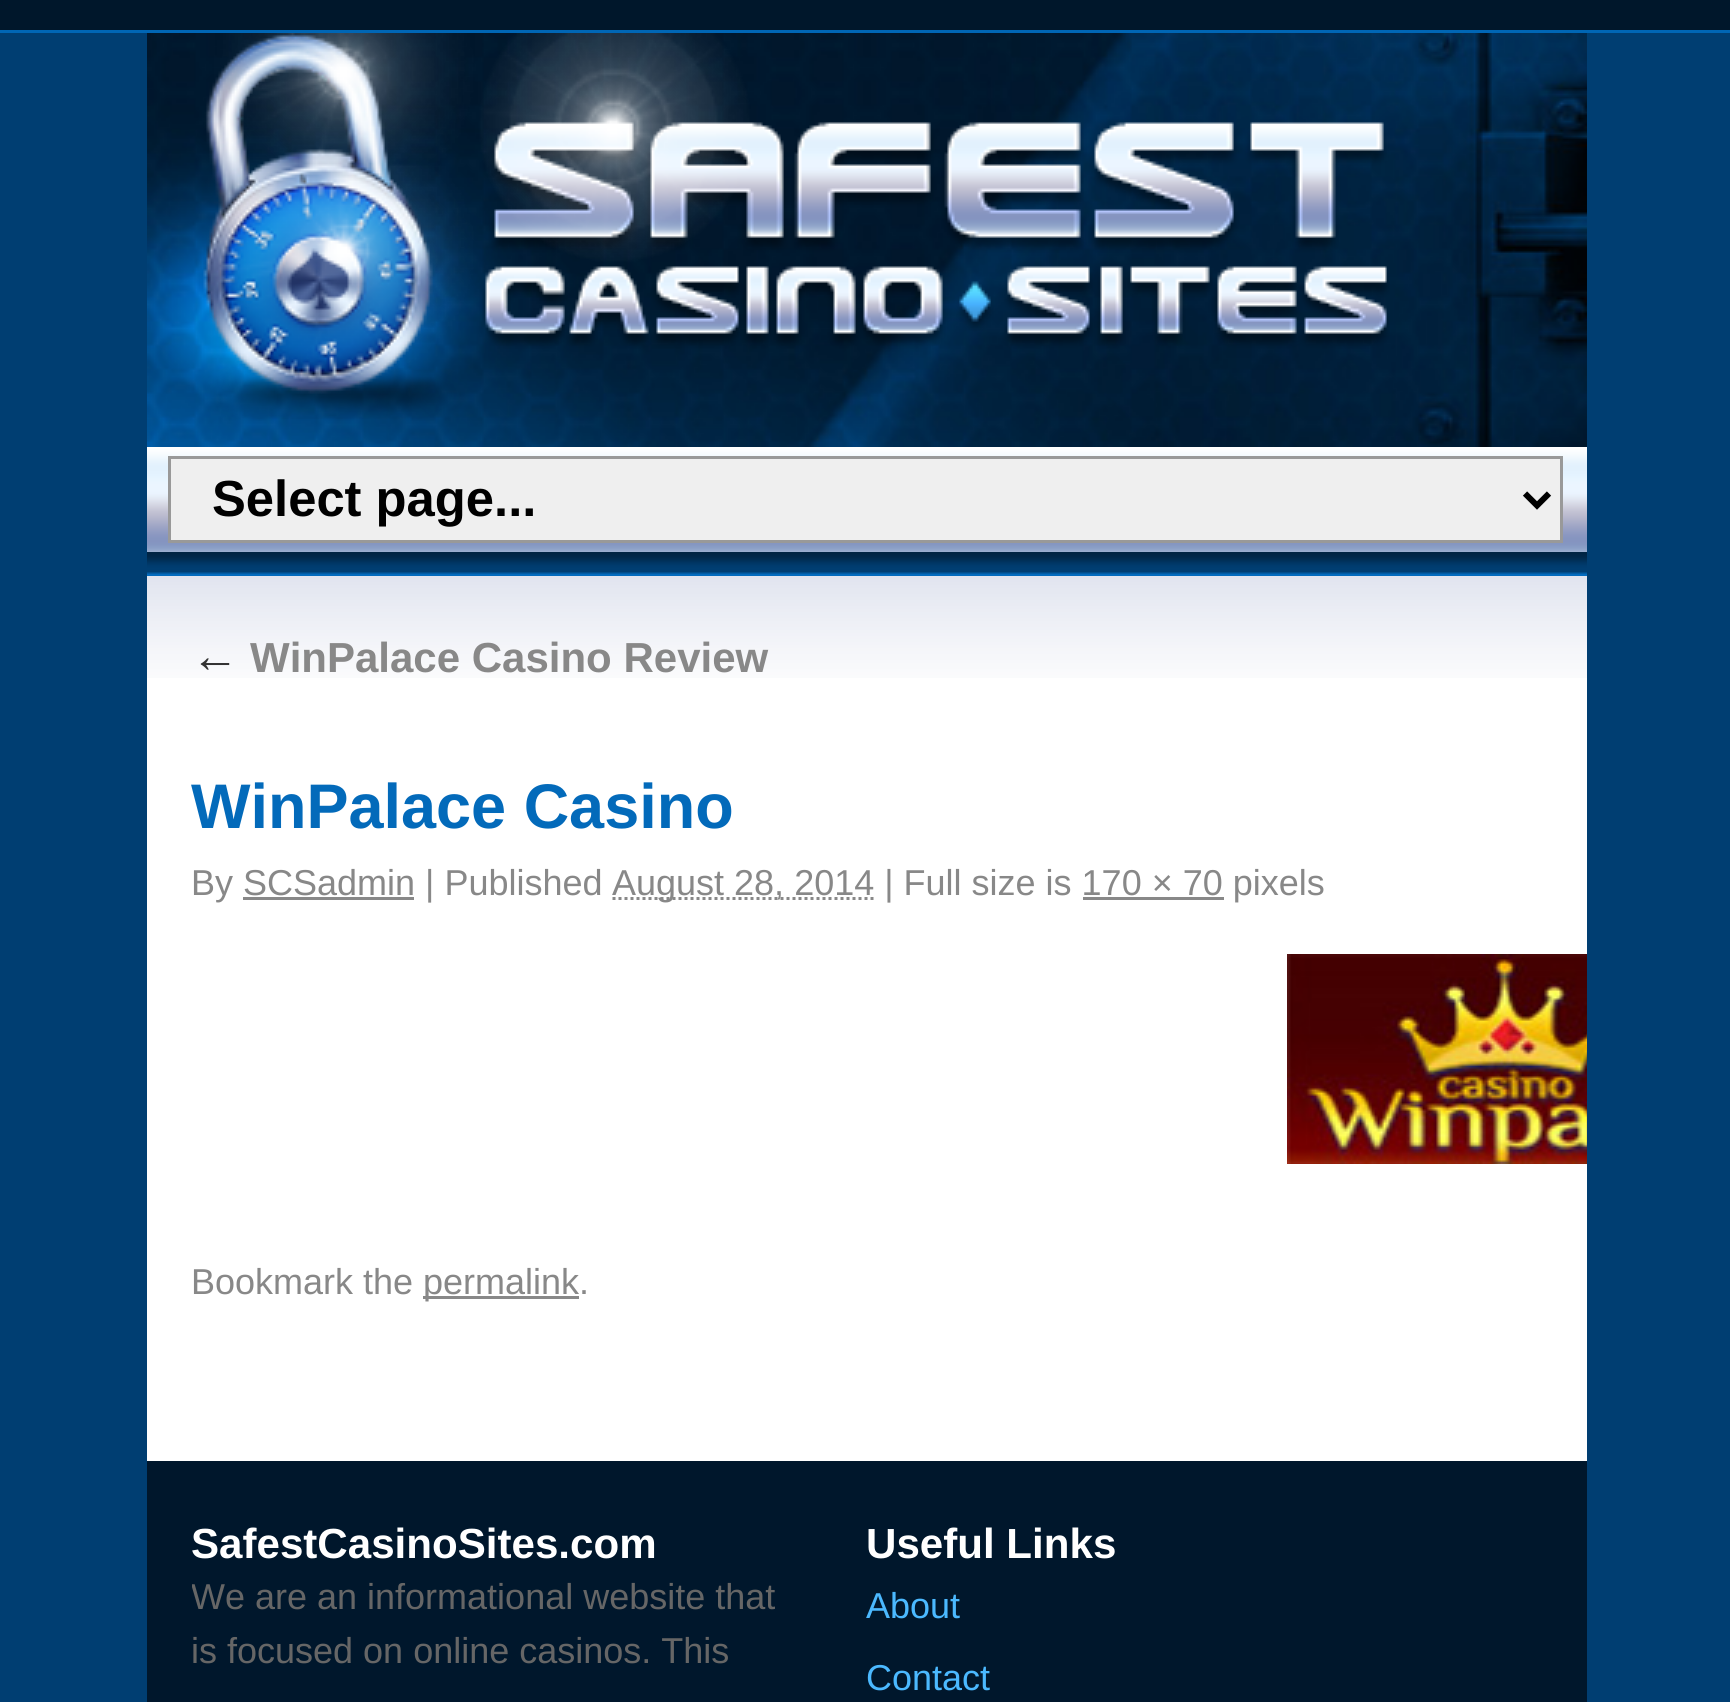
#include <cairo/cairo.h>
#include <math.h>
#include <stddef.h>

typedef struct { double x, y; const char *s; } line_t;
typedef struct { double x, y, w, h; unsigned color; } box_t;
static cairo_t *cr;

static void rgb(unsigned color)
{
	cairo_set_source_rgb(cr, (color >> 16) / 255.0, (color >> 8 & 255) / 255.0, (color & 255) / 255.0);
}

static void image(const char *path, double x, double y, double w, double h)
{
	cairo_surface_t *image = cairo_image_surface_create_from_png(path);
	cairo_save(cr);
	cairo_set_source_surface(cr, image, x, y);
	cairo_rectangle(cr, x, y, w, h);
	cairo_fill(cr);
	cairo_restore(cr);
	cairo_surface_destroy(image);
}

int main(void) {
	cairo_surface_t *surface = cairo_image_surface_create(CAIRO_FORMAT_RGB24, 1730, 1702);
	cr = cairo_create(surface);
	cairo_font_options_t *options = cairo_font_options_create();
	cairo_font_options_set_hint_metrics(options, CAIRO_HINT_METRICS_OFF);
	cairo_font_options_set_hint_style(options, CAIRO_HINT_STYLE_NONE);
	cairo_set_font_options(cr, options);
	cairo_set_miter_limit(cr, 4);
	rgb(0x003e72);
	cairo_paint(cr);
	{
		static const box_t items[] = {
			{0, 0, 1730, 30, 0x00172b},
			{0, 30, 1730, 3, 0x0066b5},
			{147, 678, 1440, 783, 0xffffff},
		};
		for (size_t i = 0; i < sizeof items / sizeof *items; i++) {
			rgb(items[i].color);
			cairo_rectangle(cr, items[i].x, items[i].y, items[i].w, items[i].h);
			cairo_fill(cr);
		}
	}
	image("img/1.png", 147, 33, 1440, 414);
	image("img/2.png", 203, 33, 1187, 386);
	image("img/3.png", 147, 447, 1440, 105);
	rgb(0xefefef);
	cairo_rectangle(cr, 169.5, 457.5, 1392, 84);
	cairo_fill_preserve(cr);
	rgb(0x999999);
	cairo_set_line_width(cr, 3);
	cairo_stroke(cr);
	cairo_new_path(cr);
	cairo_move_to(cr, 1525, 493.5);
	cairo_line_to(cr, 1537, 505.5);
	cairo_line_to(cr, 1549, 493.5);
	rgb(0x000000);
	cairo_set_line_width(cr, 6);
	cairo_stroke(cr);
	image("img/4.png", 147, 552, 1440, 24);
	image("img/5.png", 147, 576, 1440, 102);
	cairo_new_path(cr);
	cairo_move_to(cr, 612.5, 898.5);
	cairo_line_to(cr, 874.5, 898.5);
	rgb(0x888888);
	cairo_set_line_width(cr, 3);
	cairo_set_dash(cr, (double[]){3, 3}, 2, 0);
	cairo_stroke(cr);
	cairo_rectangle(cr, 243, 897, 171, 3);
	cairo_fill(cr);
	cairo_rectangle(cr, 1083, 897, 141, 3);
	cairo_fill(cr);
	image("img/6.png", 1287, 954, 300, 210);
	cairo_rectangle(cr, 423, 1296, 156, 3);
	cairo_fill(cr);
	rgb(0x00172c);
	cairo_rectangle(cr, 147, 1461, 1440, 241);
	cairo_fill(cr);
	cairo_select_font_face(cr, "Liberation Sans", CAIRO_FONT_SLANT_NORMAL, CAIRO_FONT_WEIGHT_BOLD);
	cairo_set_font_size(cr, 50.75);
	rgb(0x000000);
	cairo_move_to(cr, 212, 516);
	cairo_show_text(cr, "Select page...");
	cairo_select_font_face(cr, "Liberation Sans", CAIRO_FONT_SLANT_ITALIC, CAIRO_FONT_WEIGHT_NORMAL);
	cairo_set_font_size(cr, 48);
	rgb(0x333333);
	cairo_move_to(cr, 191, 672);
	cairo_show_text(cr, "←");
	cairo_select_font_face(cr, "Liberation Sans", CAIRO_FONT_SLANT_NORMAL, CAIRO_FONT_WEIGHT_BOLD);
	cairo_set_font_size(cr, 42);
	rgb(0x888888);
	cairo_move_to(cr, 250, 672);
	cairo_show_text(cr, "WinPalace Casino Review");
	cairo_set_font_size(cr, 63);
	rgb(0x036aba);
	cairo_move_to(cr, 191, 828);
	cairo_show_text(cr, "WinPalace Casino");
	cairo_select_font_face(cr, "Liberation Sans", CAIRO_FONT_SLANT_NORMAL, CAIRO_FONT_WEIGHT_NORMAL);
	cairo_set_font_size(cr, 36);
	rgb(0x888888);
	{
		static const line_t items[] = {
			{191, 895, "By SCSadmin | Published"},
			{612, 895, "August 28, 2014 | Full size is 170 × 70 pixels"},
			{191, 1294, "Bookmark the"},
			{423, 1294, "permalink."},
		};
		for (size_t i = 0; i < sizeof items / sizeof *items; i++) {
			cairo_move_to(cr, items[i].x, items[i].y);
			cairo_show_text(cr, items[i].s);
		}
	}
	cairo_select_font_face(cr, "Liberation Sans", CAIRO_FONT_SLANT_NORMAL, CAIRO_FONT_WEIGHT_BOLD);
	cairo_set_font_size(cr, 42.1);
	rgb(0xffffff);
	cairo_move_to(cr, 191, 1558);
	cairo_show_text(cr, "SafestCasinoSites.com");
	cairo_save(cr);
	cairo_rectangle(cr, 192, 1506, 1350, 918);
	cairo_clip(cr);
	cairo_select_font_face(cr, "Liberation Sans", CAIRO_FONT_SLANT_NORMAL, CAIRO_FONT_WEIGHT_NORMAL);
	cairo_set_font_size(cr, 36);
	rgb(0x666666);
	cairo_move_to(cr, 191, 1609);
	cairo_show_text(cr, "We are an informational website that");
	cairo_restore(cr);
	cairo_select_font_face(cr, "Liberation Sans", CAIRO_FONT_SLANT_NORMAL, CAIRO_FONT_WEIGHT_NORMAL);
	cairo_set_font_size(cr, 36);
	rgb(0x666666);
	cairo_move_to(cr, 191, 1663);
	cairo_show_text(cr, "is focused on online casinos. This");
	cairo_select_font_face(cr, "Liberation Sans", CAIRO_FONT_SLANT_NORMAL, CAIRO_FONT_WEIGHT_BOLD);
	cairo_set_font_size(cr, 42.1);
	rgb(0xffffff);
	cairo_move_to(cr, 866, 1558);
	cairo_show_text(cr, "Useful Links");
	cairo_select_font_face(cr, "Liberation Sans", CAIRO_FONT_SLANT_NORMAL, CAIRO_FONT_WEIGHT_NORMAL);
	cairo_set_font_size(cr, 36);
	rgb(0x4bb9ff);
	cairo_move_to(cr, 866, 1618);
	cairo_show_text(cr, "About");
	cairo_move_to(cr, 866, 1690);
	cairo_show_text(cr, "Contact");
	cairo_surface_write_to_png(surface, "page.png");
	cairo_font_options_destroy(options);
	cairo_destroy(cr);
	cairo_surface_destroy(surface);
	return 0;
}
